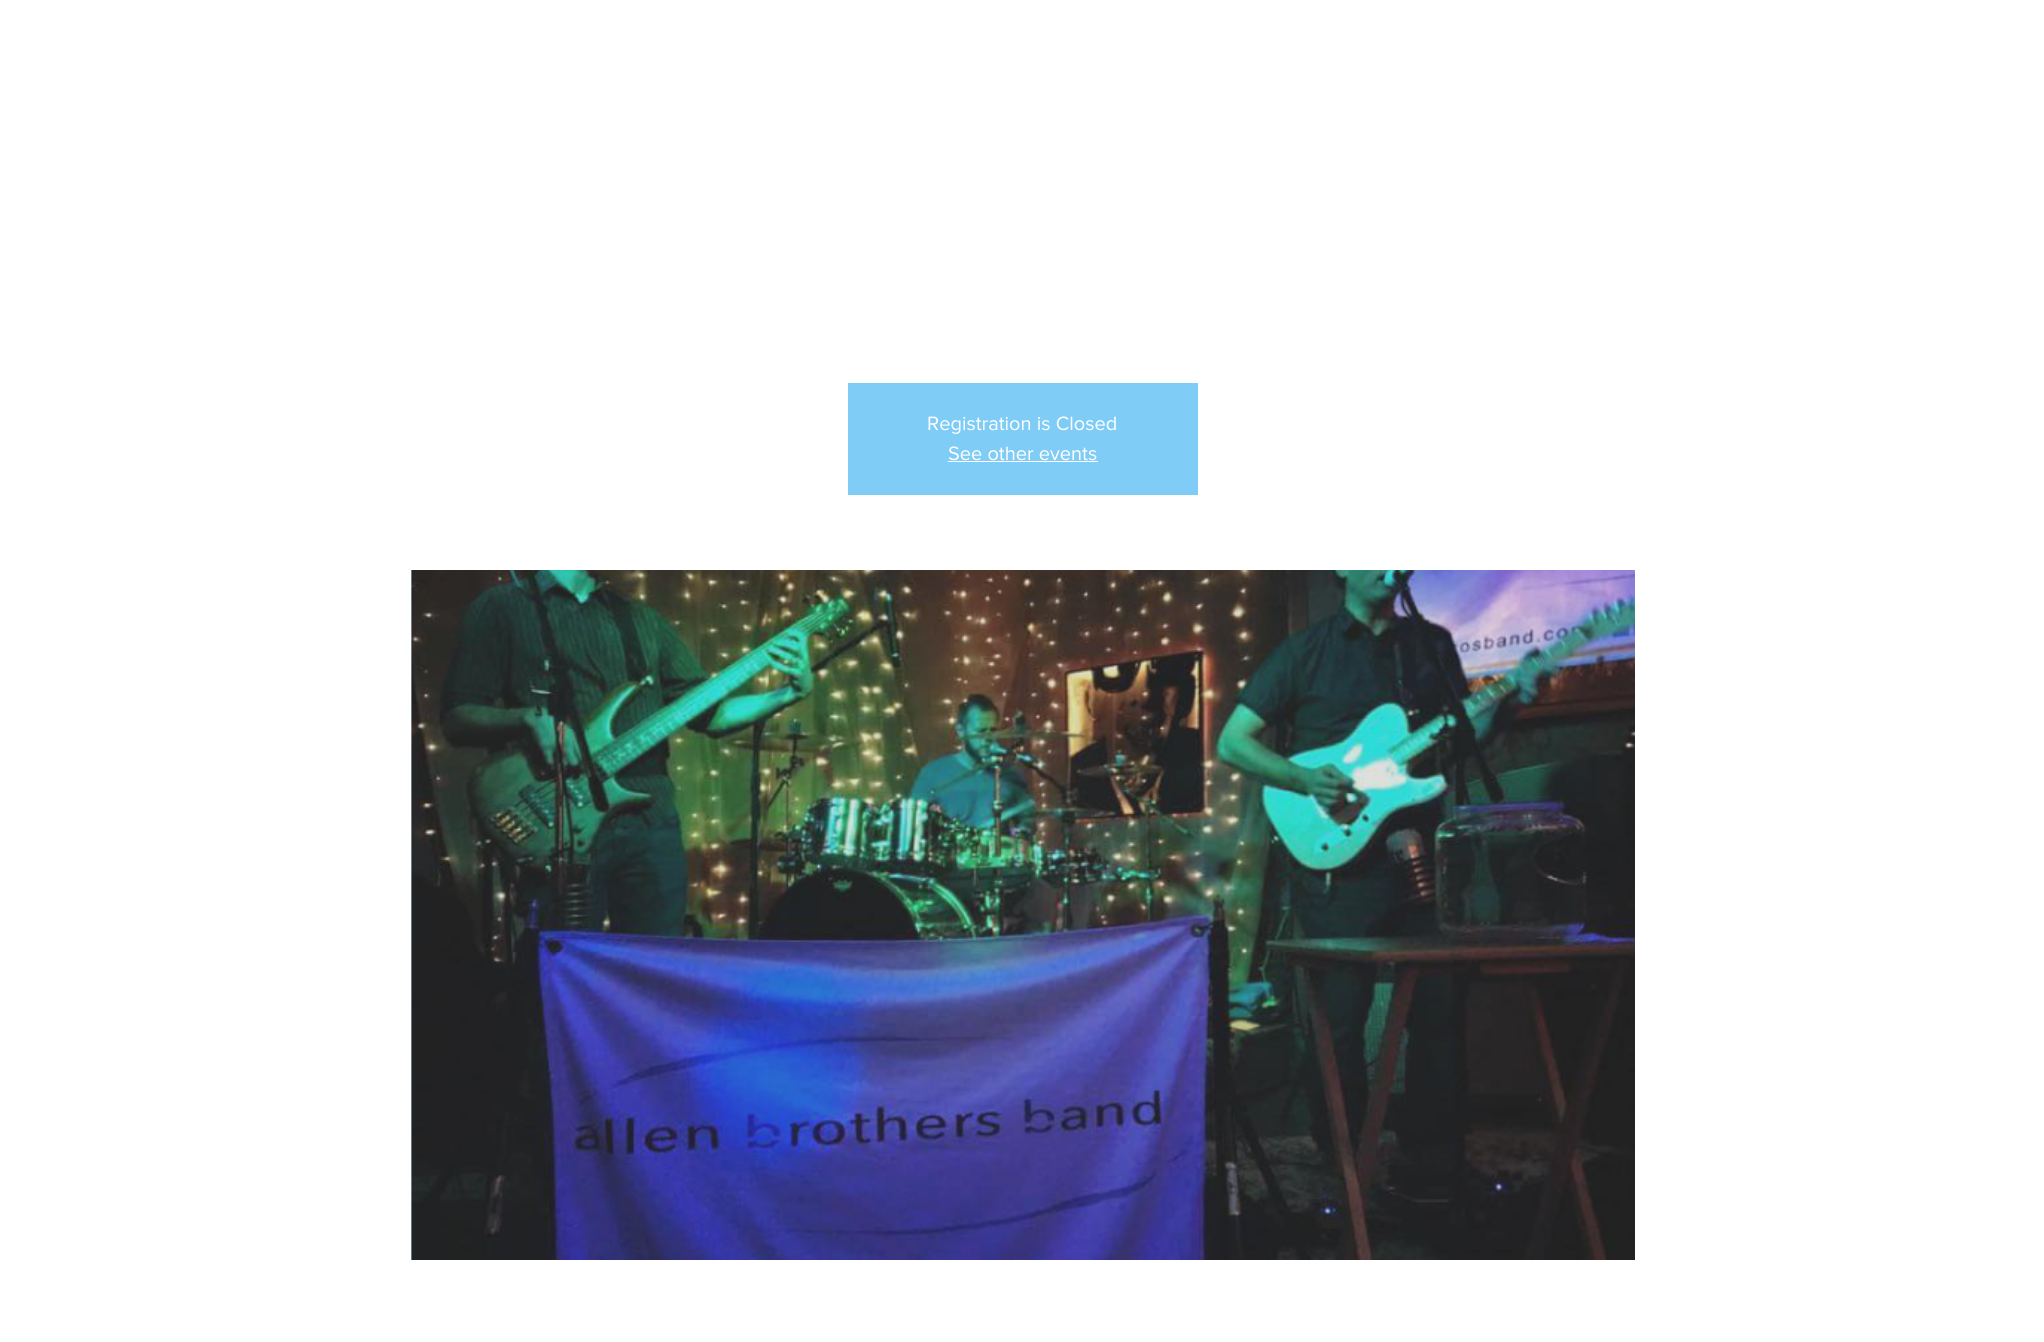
#include <cairo/cairo.h>
#include <math.h>
#include <stddef.h>

typedef struct { double x, y, w, h; unsigned color; } box_t;
static cairo_t *cr;

static void rgb(unsigned color)
{
	cairo_set_source_rgb(cr, (color >> 16) / 255.0, (color >> 8 & 255) / 255.0, (color & 255) / 255.0);
}

static void image(const char *path, double x, double y, double w, double h)
{
	cairo_surface_t *image = cairo_image_surface_create_from_png(path);
	cairo_save(cr);
	cairo_set_source_surface(cr, image, x, y);
	cairo_rectangle(cr, x, y, w, h);
	cairo_fill(cr);
	cairo_restore(cr);
	cairo_surface_destroy(image);
}

int main(void) {
	cairo_surface_t *surface = cairo_image_surface_create(CAIRO_FORMAT_RGB24, 2044, 1342);
	cr = cairo_create(surface);
	cairo_font_options_t *options = cairo_font_options_create();
	cairo_font_options_set_hint_metrics(options, CAIRO_HINT_METRICS_OFF);
	cairo_font_options_set_hint_style(options, CAIRO_HINT_STYLE_NONE);
	cairo_set_font_options(cr, options);
	cairo_set_miter_limit(cr, 4);
	rgb(0xffffff);
	cairo_paint(cr);
	{
		static const box_t items[] = {
			{848, 383, 350, 112, 0x7fccf7},
			{948, 461, 150, 1, 0xffffff},
			{411, 570, 1, 690, 0xbee5fb},
		};
		for (size_t i = 0; i < sizeof items / sizeof *items; i++) {
			rgb(items[i].color);
			cairo_rectangle(cr, items[i].x, items[i].y, items[i].w, items[i].h);
			cairo_fill(cr);
		}
	}
	image("img/1.png", 411, 570, 1224, 690);
	cairo_select_font_face(cr, "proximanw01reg", CAIRO_FONT_SLANT_NORMAL, CAIRO_FONT_WEIGHT_NORMAL);
	cairo_set_font_size(cr, 20);
	rgb(0xffffff);
	cairo_move_to(cr, 927, 430);
	cairo_show_text(cr, "Registration is Closed");
	cairo_move_to(cr, 948, 460);
	cairo_show_text(cr, "See other events");
	cairo_surface_write_to_png(surface, "page.png");
	cairo_font_options_destroy(options);
	cairo_destroy(cr);
	cairo_surface_destroy(surface);
	return 0;
}
